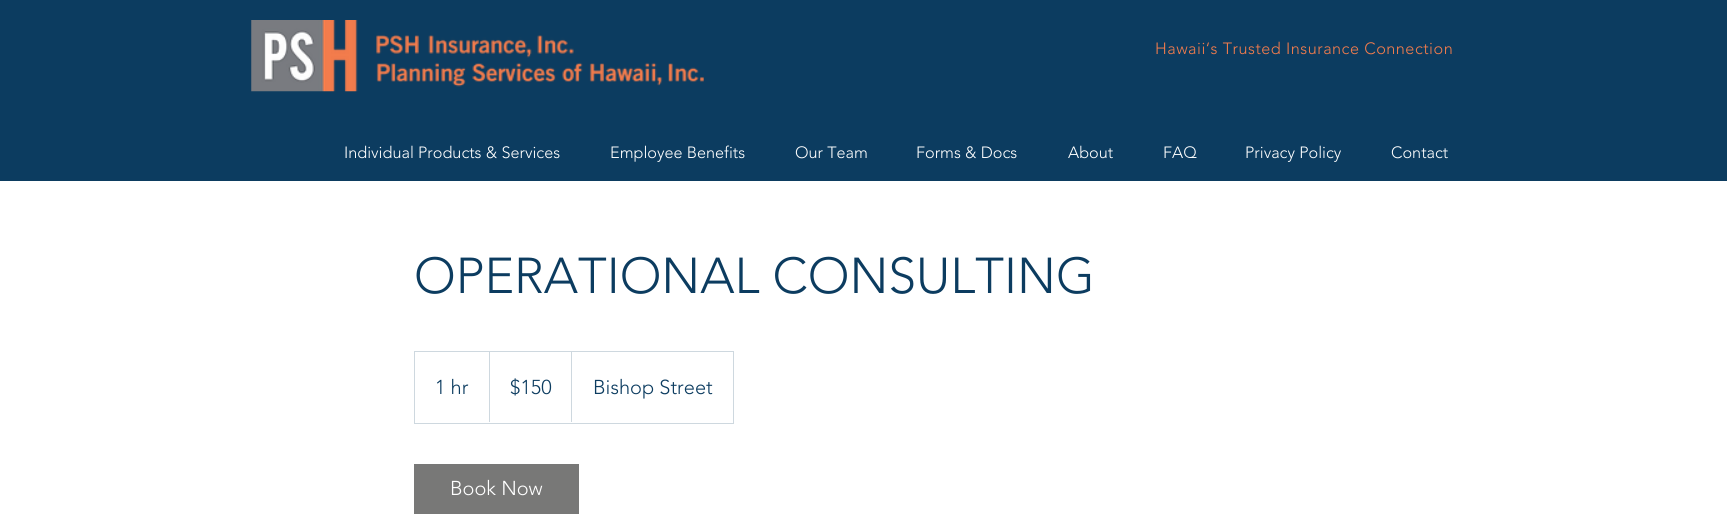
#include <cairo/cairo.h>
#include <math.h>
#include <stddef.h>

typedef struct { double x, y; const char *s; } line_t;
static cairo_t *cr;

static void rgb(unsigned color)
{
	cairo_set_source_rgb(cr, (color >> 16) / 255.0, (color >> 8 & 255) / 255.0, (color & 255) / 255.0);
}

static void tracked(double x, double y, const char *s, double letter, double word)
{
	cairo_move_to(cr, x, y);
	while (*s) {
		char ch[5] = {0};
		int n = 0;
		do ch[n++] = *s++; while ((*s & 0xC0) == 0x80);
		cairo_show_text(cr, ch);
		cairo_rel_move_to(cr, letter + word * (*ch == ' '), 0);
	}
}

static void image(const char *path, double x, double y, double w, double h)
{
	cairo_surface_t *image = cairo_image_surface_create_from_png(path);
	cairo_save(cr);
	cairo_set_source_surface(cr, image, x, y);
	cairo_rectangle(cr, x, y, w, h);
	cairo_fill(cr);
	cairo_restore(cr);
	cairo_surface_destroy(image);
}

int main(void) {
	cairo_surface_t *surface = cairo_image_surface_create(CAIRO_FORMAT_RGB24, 1727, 514);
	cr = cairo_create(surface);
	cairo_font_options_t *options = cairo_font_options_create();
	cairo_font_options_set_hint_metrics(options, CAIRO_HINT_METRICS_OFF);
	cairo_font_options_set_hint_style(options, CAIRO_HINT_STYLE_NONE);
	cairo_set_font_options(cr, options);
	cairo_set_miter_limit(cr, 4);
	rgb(0xffffff);
	cairo_paint(cr);
	rgb(0x0c3c60);
	cairo_rectangle(cr, 0, 0, 1727, 181);
	cairo_fill(cr);
	image("img/1.png", 251, 20, 453, 72);
	cairo_rectangle(cr, 414.5, 351.5, 319, 72);
	rgb(0xced8df);
	cairo_set_line_width(cr, 1);
	cairo_stroke(cr);
	cairo_new_path(cr);
	cairo_move_to(cr, 489, 422);
	cairo_line_to(cr, 489, 351);
	cairo_line_to(cr, 490, 352);
	cairo_line_to(cr, 490, 422);
	cairo_close_path(cr);
	cairo_fill(cr);
	cairo_new_path(cr);
	cairo_move_to(cr, 571, 422);
	cairo_line_to(cr, 571, 351);
	cairo_line_to(cr, 572, 352);
	cairo_line_to(cr, 572, 422);
	cairo_close_path(cr);
	cairo_fill(cr);
	rgb(0x787877);
	cairo_rectangle(cr, 414, 464, 165, 50);
	cairo_fill(cr);
	cairo_select_font_face(cr, "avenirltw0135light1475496 Light", CAIRO_FONT_SLANT_NORMAL, CAIRO_FONT_WEIGHT_NORMAL);
	cairo_set_font_size(cr, 16.25);
	rgb(0xf37c4c);
	tracked(1155, 54, "Hawaii‘s Trusted Insurance Connection", 0.5, 0);
	rgb(0xffffff);
	{
		static const line_t items[] = {
			{344, 158, "Individual Products & Services"},
			{610, 158, "Employee Benefits"},
			{795, 158, "Our Team"},
			{916, 158, "Forms & Docs"},
			{1068, 158, "About"},
			{1163, 158, "FAQ"},
			{1245, 158, "Privacy Policy"},
			{1391, 158, "Contact"},
		};
		for (size_t i = 0; i < sizeof items / sizeof *items; i++) {
			cairo_move_to(cr, items[i].x, items[i].y);
			cairo_show_text(cr, items[i].s);
		}
	}
	cairo_set_font_size(cr, 50);
	rgb(0x0c3c60);
	cairo_move_to(cr, 414, 293);
	cairo_show_text(cr, "OPERATIONAL CONSULTING");
	cairo_set_font_size(cr, 20);
	{
		static const line_t items[] = {
			{435, 394, "1 hr"},
			{510, 394, "$150"},
			{593, 394, "Bishop Street"},
		};
		for (size_t i = 0; i < sizeof items / sizeof *items; i++) {
			cairo_move_to(cr, items[i].x, items[i].y);
			cairo_show_text(cr, items[i].s);
		}
	}
	rgb(0xffffff);
	cairo_move_to(cr, 450, 495);
	cairo_show_text(cr, "Book Now");
	cairo_surface_write_to_png(surface, "page.png");
	cairo_font_options_destroy(options);
	cairo_destroy(cr);
	cairo_surface_destroy(surface);
	return 0;
}
